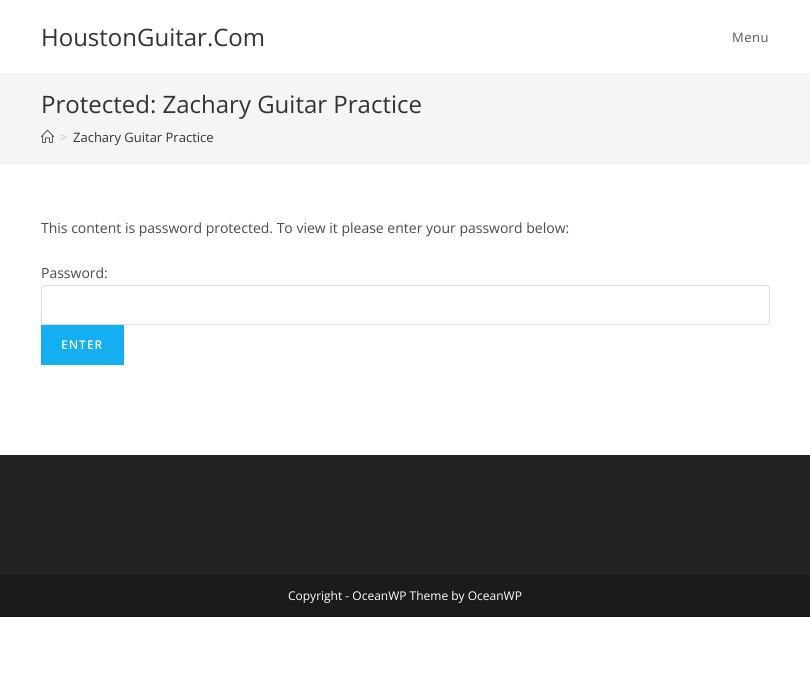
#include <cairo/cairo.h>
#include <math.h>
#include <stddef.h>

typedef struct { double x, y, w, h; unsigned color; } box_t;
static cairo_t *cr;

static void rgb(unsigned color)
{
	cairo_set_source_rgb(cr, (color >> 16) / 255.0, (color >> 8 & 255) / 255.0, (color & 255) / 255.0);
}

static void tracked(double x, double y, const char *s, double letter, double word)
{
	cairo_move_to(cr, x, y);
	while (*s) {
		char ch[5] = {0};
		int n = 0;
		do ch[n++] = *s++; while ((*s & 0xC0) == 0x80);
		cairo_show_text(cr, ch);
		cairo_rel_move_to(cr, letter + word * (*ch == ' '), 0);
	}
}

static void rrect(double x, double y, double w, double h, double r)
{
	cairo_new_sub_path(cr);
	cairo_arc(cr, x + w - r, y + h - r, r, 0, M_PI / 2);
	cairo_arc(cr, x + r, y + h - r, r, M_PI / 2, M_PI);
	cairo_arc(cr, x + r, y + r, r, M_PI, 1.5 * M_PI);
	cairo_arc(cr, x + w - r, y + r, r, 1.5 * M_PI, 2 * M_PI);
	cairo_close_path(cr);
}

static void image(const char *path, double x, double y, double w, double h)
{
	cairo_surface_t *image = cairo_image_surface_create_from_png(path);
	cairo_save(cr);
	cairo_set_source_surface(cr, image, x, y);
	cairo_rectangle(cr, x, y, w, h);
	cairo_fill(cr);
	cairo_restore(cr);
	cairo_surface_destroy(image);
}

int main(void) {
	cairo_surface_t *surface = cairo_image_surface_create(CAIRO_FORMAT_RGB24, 810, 674);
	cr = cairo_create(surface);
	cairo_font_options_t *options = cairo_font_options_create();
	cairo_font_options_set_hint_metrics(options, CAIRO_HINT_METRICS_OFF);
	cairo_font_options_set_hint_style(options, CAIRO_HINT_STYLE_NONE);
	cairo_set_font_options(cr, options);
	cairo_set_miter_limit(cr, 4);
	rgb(0xffffff);
	cairo_paint(cr);
	rgb(0xf1f1f1);
	cairo_rectangle(cr, 0, 74, 810, 1);
	cairo_fill(cr);
	rgb(0xf5f5f5);
	cairo_rectangle(cr, 0, 75, 810, 90);
	cairo_fill(cr);
	image("img/1.png", 41, 129, 13, 14);
	rrect(41.5, 285.5, 728, 39, 2.5);
	rgb(0xdddddd);
	cairo_set_line_width(cr, 1);
	cairo_stroke(cr);
	{
		static const box_t items[] = {
			{41, 325, 83, 40, 0x13aff0},
			{0, 455, 810, 120, 0x222222},
			{0, 575, 810, 42, 0x1b1b1b},
		};
		for (size_t i = 0; i < sizeof items / sizeof *items; i++) {
			rgb(items[i].color);
			cairo_rectangle(cr, items[i].x, items[i].y, items[i].w, items[i].h);
			cairo_fill(cr);
		}
	}
	cairo_select_font_face(cr, "Open Sans", CAIRO_FONT_SLANT_NORMAL, CAIRO_FONT_WEIGHT_NORMAL);
	cairo_set_font_size(cr, 24);
	rgb(0x333333);
	cairo_move_to(cr, 41, 46);
	cairo_show_text(cr, "HoustonGuitar.Com");
	cairo_set_font_size(cr, 13);
	rgb(0x555555);
	tracked(732, 42, "Menu", 0.5, 0);
	cairo_set_font_size(cr, 24);
	rgb(0x333333);
	cairo_move_to(cr, 41, 113);
	cairo_show_text(cr, "Protected: Zachary Guitar Practice");
	cairo_set_font_size(cr, 13);
	rgb(0xc6c6c6);
	cairo_move_to(cr, 60, 142);
	cairo_show_text(cr, ">");
	rgb(0x333333);
	cairo_move_to(cr, 73, 142);
	cairo_show_text(cr, "Zachary Guitar Practice");
	cairo_set_font_size(cr, 14);
	rgb(0x4a4a4a);
	cairo_move_to(cr, 41, 233);
	cairo_show_text(cr, "This content is password protected. To view it please enter your password below:");
	cairo_move_to(cr, 41, 278);
	cairo_show_text(cr, "Password:");
	cairo_select_font_face(cr, "Open Sans SemiBold", CAIRO_FONT_SLANT_NORMAL, CAIRO_FONT_WEIGHT_NORMAL);
	cairo_set_font_size(cr, 12);
	rgb(0xffffff);
	tracked(61, 349, "ENTER", 1, 0);
	cairo_select_font_face(cr, "Open Sans", CAIRO_FONT_SLANT_NORMAL, CAIRO_FONT_WEIGHT_NORMAL);
	cairo_move_to(cr, 288, 600);
	cairo_show_text(cr, "Copyright - OceanWP Theme by OceanWP");
	cairo_surface_write_to_png(surface, "page.png");
	cairo_font_options_destroy(options);
	cairo_destroy(cr);
	cairo_surface_destroy(surface);
	return 0;
}
